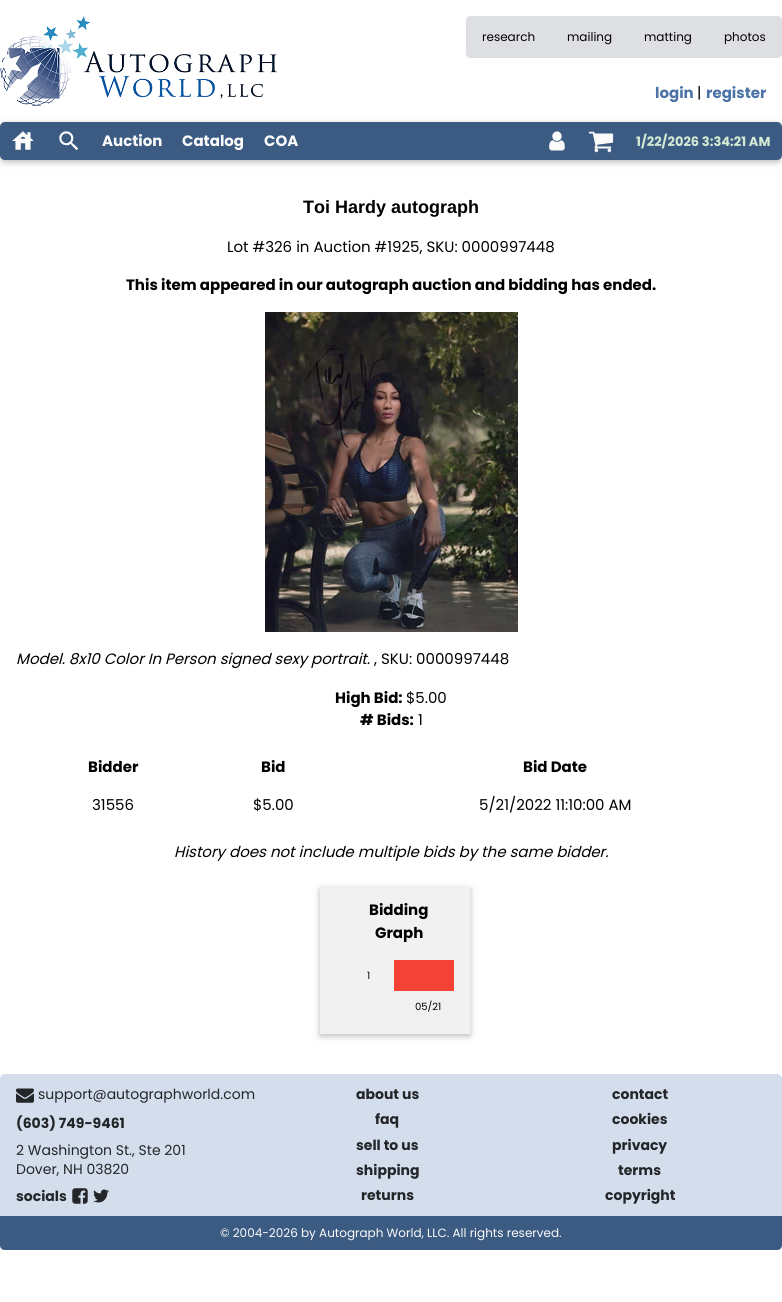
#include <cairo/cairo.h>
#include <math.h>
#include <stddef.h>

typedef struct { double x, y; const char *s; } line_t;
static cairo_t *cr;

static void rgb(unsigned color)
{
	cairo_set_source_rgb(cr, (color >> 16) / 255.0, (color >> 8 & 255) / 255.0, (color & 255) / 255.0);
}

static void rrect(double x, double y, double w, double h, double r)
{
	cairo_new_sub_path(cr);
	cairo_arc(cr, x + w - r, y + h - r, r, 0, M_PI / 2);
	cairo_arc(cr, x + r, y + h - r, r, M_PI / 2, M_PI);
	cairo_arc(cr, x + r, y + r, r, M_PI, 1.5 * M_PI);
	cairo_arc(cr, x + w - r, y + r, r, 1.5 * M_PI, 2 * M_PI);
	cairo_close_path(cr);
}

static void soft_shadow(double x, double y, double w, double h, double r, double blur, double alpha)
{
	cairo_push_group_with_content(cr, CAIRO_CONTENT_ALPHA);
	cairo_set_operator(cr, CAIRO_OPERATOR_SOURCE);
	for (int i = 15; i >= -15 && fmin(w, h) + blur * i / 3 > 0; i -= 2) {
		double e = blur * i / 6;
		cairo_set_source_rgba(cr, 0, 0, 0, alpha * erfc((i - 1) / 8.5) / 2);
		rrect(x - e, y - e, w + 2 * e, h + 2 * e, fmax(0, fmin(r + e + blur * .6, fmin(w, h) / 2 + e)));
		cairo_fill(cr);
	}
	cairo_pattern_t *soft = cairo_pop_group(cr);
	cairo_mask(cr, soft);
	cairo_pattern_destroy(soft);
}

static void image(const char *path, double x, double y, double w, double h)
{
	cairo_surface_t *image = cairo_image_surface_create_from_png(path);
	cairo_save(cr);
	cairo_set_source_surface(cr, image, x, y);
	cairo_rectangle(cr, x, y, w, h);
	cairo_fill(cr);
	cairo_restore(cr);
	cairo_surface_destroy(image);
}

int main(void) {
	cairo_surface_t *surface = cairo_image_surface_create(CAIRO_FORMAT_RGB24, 782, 1302);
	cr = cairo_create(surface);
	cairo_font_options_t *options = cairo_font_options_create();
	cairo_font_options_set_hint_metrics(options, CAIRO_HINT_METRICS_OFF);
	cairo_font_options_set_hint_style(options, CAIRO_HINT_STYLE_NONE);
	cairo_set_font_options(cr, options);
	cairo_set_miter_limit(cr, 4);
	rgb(0xffffff);
	cairo_paint(cr);
	image("img/1.png", 0, 16, 277, 90);
	rgb(0xdddfe2);
	cairo_new_path(cr);
	cairo_move_to(cr, 471, 16);
	cairo_line_to(cr, 551, 16);
	cairo_line_to(cr, 551, 58);
	cairo_line_to(cr, 471, 58);
	cairo_curve_to(cr, 468, 58, 466, 56, 466, 53);
	cairo_line_to(cr, 466, 21);
	cairo_curve_to(cr, 466, 18, 468, 16, 471, 16);
	cairo_close_path(cr);
	cairo_fill(cr);
	cairo_save(cr);
	rrect(466, 16, 316, 42, 5);
	cairo_clip(cr);
	cairo_rectangle(cr, 466, 16, 85, 4);
	cairo_fill(cr);
	cairo_rectangle(cr, 466, 54, 85, 4);
	cairo_fill(cr);
	cairo_restore(cr);
	cairo_rectangle(cr, 551, 16, 157, 42);
	cairo_fill(cr);
	cairo_new_path(cr);
	cairo_move_to(cr, 708, 16);
	cairo_line_to(cr, 777, 16);
	cairo_curve_to(cr, 780, 16, 782, 18, 782, 21);
	cairo_line_to(cr, 782, 53);
	cairo_curve_to(cr, 782, 56, 780, 58, 777, 58);
	cairo_line_to(cr, 708, 58);
	cairo_close_path(cr);
	cairo_fill(cr);
	cairo_save(cr);
	rrect(466, 16, 316, 42, 5);
	cairo_clip(cr);
	cairo_rectangle(cr, 708, 16, 74, 4);
	cairo_fill(cr);
	cairo_rectangle(cr, 708, 54, 74, 4);
	cairo_fill(cr);
	cairo_restore(cr);
	rgb(0x000000);
	soft_shadow(0, 124, 782, 38, 5, 5, 0.12);
	soft_shadow(0, 124, 782, 38, 5, 2.5, 0.16);
	rgb(0x3c5b83);
	rrect(0, 122, 782, 38, 5);
	cairo_fill(cr);
	image("img/2.png", 12, 131, 22, 19);
	image("img/3.png", 59, 131, 20, 20);
	image("img/4.png", 549, 131, 16, 20);
	image("img/5.png", 588, 131, 26, 22);
	image("img/6.png", 265, 312, 253, 320);
	rgb(0x000000);
	soft_shadow(320, 889, 150, 147, 0, 5, 0.12);
	soft_shadow(320, 889, 150, 147, 0, 2.5, 0.16);
	rgb(0xf1f1f1);
	cairo_rectangle(cr, 320, 887, 150, 147);
	cairo_fill(cr);
	rgb(0xf44336);
	cairo_rectangle(cr, 394, 960, 60, 31);
	cairo_fill(cr);
	rgb(0xd3ddeb);
	rrect(0, 1074, 782, 176, 5);
	cairo_fill(cr);
	image("img/7.png", 16, 1088, 18, 15);
	image("img/8.png", 72, 1188, 16, 16);
	image("img/9.png", 93, 1189, 16, 14);
	rgb(0x3c5b83);
	cairo_new_path(cr);
	cairo_move_to(cr, 0, 1216);
	cairo_line_to(cr, 782, 1216);
	cairo_line_to(cr, 782, 1245);
	cairo_curve_to(cr, 782, 1248, 780, 1250, 777, 1250);
	cairo_line_to(cr, 5, 1250);
	cairo_curve_to(cr, 2, 1250, 0, 1248, 0, 1245);
	cairo_close_path(cr);
	cairo_fill(cr);
	cairo_select_font_face(cr, "Poppins", CAIRO_FONT_SLANT_NORMAL, CAIRO_FONT_WEIGHT_NORMAL);
	cairo_set_font_size(cr, 12);
	rgb(0x000000);
	{
		static const line_t items[] = {
			{482, 41, "research"},
			{567, 41, "mailing"},
			{644, 41, "matting"},
			{724, 41, "photos"},
		};
		for (size_t i = 0; i < sizeof items / sizeof *items; i++) {
			cairo_move_to(cr, items[i].x, items[i].y);
			cairo_show_text(cr, items[i].s);
		}
	}
	cairo_select_font_face(cr, "Poppins", CAIRO_FONT_SLANT_NORMAL, CAIRO_FONT_WEIGHT_BOLD);
	cairo_set_font_size(cr, 15);
	rgb(0x4c73a6);
	cairo_move_to(cr, 655, 98);
	cairo_show_text(cr, "login");
	cairo_select_font_face(cr, "Poppins", CAIRO_FONT_SLANT_NORMAL, CAIRO_FONT_WEIGHT_NORMAL);
	rgb(0x000000);
	cairo_move_to(cr, 697, 98);
	cairo_show_text(cr, "|");
	cairo_select_font_face(cr, "Poppins", CAIRO_FONT_SLANT_NORMAL, CAIRO_FONT_WEIGHT_BOLD);
	rgb(0x4c73a6);
	cairo_move_to(cr, 706, 98);
	cairo_show_text(cr, "register");
	rgb(0xfbfbfb);
	{
		static const line_t items[] = {
			{102, 146, "Auction"},
			{182, 146, "Catalog"},
			{264, 146, "COA"},
		};
		for (size_t i = 0; i < sizeof items / sizeof *items; i++) {
			cairo_move_to(cr, items[i].x, items[i].y);
			cairo_show_text(cr, items[i].s);
		}
	}
	cairo_set_font_size(cr, 13);
	rgb(0xd3ebd3);
	cairo_move_to(cr, 636, 146);
	cairo_show_text(cr, "1/22/2026 3:34:21 AM");
	cairo_select_font_face(cr, "Liberation Sans", CAIRO_FONT_SLANT_NORMAL, CAIRO_FONT_WEIGHT_BOLD);
	cairo_set_font_size(cr, 18);
	rgb(0x000000);
	cairo_move_to(cr, 303, 213);
	cairo_show_text(cr, "Toi Hardy autograph");
	cairo_select_font_face(cr, "Poppins", CAIRO_FONT_SLANT_NORMAL, CAIRO_FONT_WEIGHT_NORMAL);
	cairo_set_font_size(cr, 15);
	cairo_move_to(cr, 227, 252);
	cairo_show_text(cr, "Lot #326 in Auction #1925, SKU: 0000997448");
	cairo_select_font_face(cr, "Poppins", CAIRO_FONT_SLANT_NORMAL, CAIRO_FONT_WEIGHT_BOLD);
	cairo_move_to(cr, 126, 290);
	cairo_show_text(cr, "This item appeared in our autograph auction and bidding has ended.");
	cairo_select_font_face(cr, "Poppins", CAIRO_FONT_SLANT_ITALIC, CAIRO_FONT_WEIGHT_NORMAL);
	cairo_move_to(cr, 16, 664);
	cairo_show_text(cr, "Model. 8x10 Color In Person signed sexy portrait.");
	cairo_select_font_face(cr, "Poppins", CAIRO_FONT_SLANT_NORMAL, CAIRO_FONT_WEIGHT_NORMAL);
	cairo_move_to(cr, 374, 664);
	cairo_show_text(cr, ", SKU: 0000997448");
	cairo_select_font_face(cr, "Poppins", CAIRO_FONT_SLANT_NORMAL, CAIRO_FONT_WEIGHT_BOLD);
	cairo_move_to(cr, 335, 703);
	cairo_show_text(cr, "High Bid:");
	cairo_select_font_face(cr, "Poppins", CAIRO_FONT_SLANT_NORMAL, CAIRO_FONT_WEIGHT_NORMAL);
	cairo_move_to(cr, 406, 703);
	cairo_show_text(cr, "$5.00");
	cairo_select_font_face(cr, "Poppins", CAIRO_FONT_SLANT_NORMAL, CAIRO_FONT_WEIGHT_BOLD);
	cairo_move_to(cr, 360, 725);
	cairo_show_text(cr, "# Bids:");
	cairo_select_font_face(cr, "Poppins", CAIRO_FONT_SLANT_NORMAL, CAIRO_FONT_WEIGHT_NORMAL);
	cairo_move_to(cr, 418, 725);
	cairo_show_text(cr, "1");
	cairo_select_font_face(cr, "Poppins", CAIRO_FONT_SLANT_NORMAL, CAIRO_FONT_WEIGHT_BOLD);
	{
		static const line_t items[] = {
			{88, 772, "Bidder"},
			{261, 772, "Bid"},
			{523, 772, "Bid Date"},
		};
		for (size_t i = 0; i < sizeof items / sizeof *items; i++) {
			cairo_move_to(cr, items[i].x, items[i].y);
			cairo_show_text(cr, items[i].s);
		}
	}
	cairo_select_font_face(cr, "Poppins", CAIRO_FONT_SLANT_NORMAL, CAIRO_FONT_WEIGHT_NORMAL);
	{
		static const line_t items[] = {
			{92, 810, "31556"},
			{253, 810, "$5.00"},
			{479, 810, "5/21/2022 11:10:00 AM"},
		};
		for (size_t i = 0; i < sizeof items / sizeof *items; i++) {
			cairo_move_to(cr, items[i].x, items[i].y);
			cairo_show_text(cr, items[i].s);
		}
	}
	cairo_select_font_face(cr, "Poppins", CAIRO_FONT_SLANT_ITALIC, CAIRO_FONT_WEIGHT_NORMAL);
	cairo_move_to(cr, 174, 857);
	cairo_show_text(cr, "History does not include multiple bids by the same bidder.");
	cairo_select_font_face(cr, "Poppins", CAIRO_FONT_SLANT_NORMAL, CAIRO_FONT_WEIGHT_BOLD);
	cairo_move_to(cr, 369, 915);
	cairo_show_text(cr, "Bidding");
	cairo_move_to(cr, 375, 938);
	cairo_show_text(cr, "Graph");
	cairo_select_font_face(cr, "Poppins", CAIRO_FONT_SLANT_NORMAL, CAIRO_FONT_WEIGHT_NORMAL);
	cairo_set_font_size(cr, 10);
	cairo_move_to(cr, 367, 979);
	cairo_show_text(cr, "1");
	cairo_move_to(cr, 415, 1010);
	cairo_show_text(cr, "05/21");
	cairo_set_font_size(cr, 14);
	rgb(0x232629);
	cairo_move_to(cr, 38, 1099);
	cairo_show_text(cr, "support@autographworld.com");
	cairo_select_font_face(cr, "Poppins", CAIRO_FONT_SLANT_NORMAL, CAIRO_FONT_WEIGHT_BOLD);
	cairo_move_to(cr, 16, 1128);
	cairo_show_text(cr, "(603) 749-9461");
	cairo_select_font_face(cr, "Poppins", CAIRO_FONT_SLANT_NORMAL, CAIRO_FONT_WEIGHT_NORMAL);
	cairo_move_to(cr, 16, 1155);
	cairo_show_text(cr, "2 Washington St., Ste 201");
	cairo_move_to(cr, 16, 1174);
	cairo_show_text(cr, "Dover, NH 03820");
	cairo_select_font_face(cr, "Poppins", CAIRO_FONT_SLANT_NORMAL, CAIRO_FONT_WEIGHT_BOLD);
	{
		static const line_t items[] = {
			{16, 1201, "socials"},
			{356, 1099, "about us"},
			{375, 1124, "faq"},
			{356, 1150, "sell to us"},
			{356, 1175, "shipping"},
			{361, 1200, "returns"},
			{612, 1099, "contact"},
			{612, 1124, "cookies"},
			{612, 1150, "privacy"},
			{618, 1175, "terms"},
			{605, 1200, "copyright"},
		};
		for (size_t i = 0; i < sizeof items / sizeof *items; i++) {
			cairo_move_to(cr, items[i].x, items[i].y);
			cairo_show_text(cr, items[i].s);
		}
	}
	cairo_select_font_face(cr, "Poppins", CAIRO_FONT_SLANT_NORMAL, CAIRO_FONT_WEIGHT_NORMAL);
	cairo_set_font_size(cr, 12);
	rgb(0xfbfbfb);
	cairo_move_to(cr, 220, 1237);
	cairo_show_text(cr, "© 2004-2026 by Autograph World, LLC. All rights reserved.");
	cairo_surface_write_to_png(surface, "page.png");
	cairo_font_options_destroy(options);
	cairo_destroy(cr);
	cairo_surface_destroy(surface);
	return 0;
}
